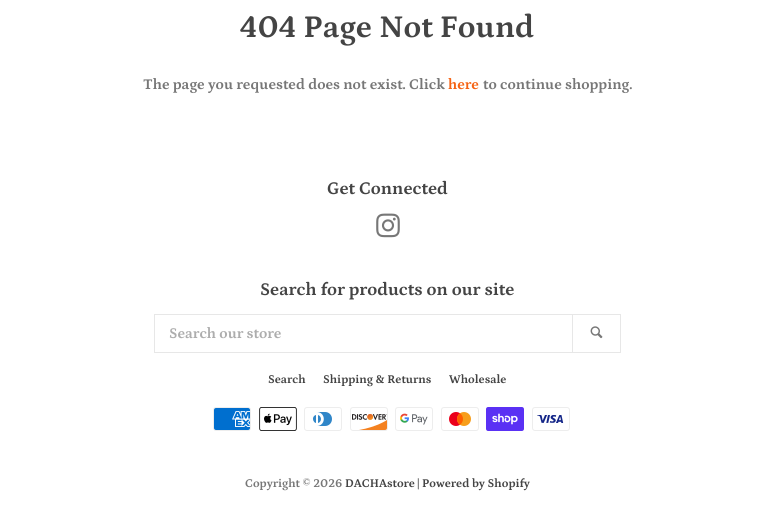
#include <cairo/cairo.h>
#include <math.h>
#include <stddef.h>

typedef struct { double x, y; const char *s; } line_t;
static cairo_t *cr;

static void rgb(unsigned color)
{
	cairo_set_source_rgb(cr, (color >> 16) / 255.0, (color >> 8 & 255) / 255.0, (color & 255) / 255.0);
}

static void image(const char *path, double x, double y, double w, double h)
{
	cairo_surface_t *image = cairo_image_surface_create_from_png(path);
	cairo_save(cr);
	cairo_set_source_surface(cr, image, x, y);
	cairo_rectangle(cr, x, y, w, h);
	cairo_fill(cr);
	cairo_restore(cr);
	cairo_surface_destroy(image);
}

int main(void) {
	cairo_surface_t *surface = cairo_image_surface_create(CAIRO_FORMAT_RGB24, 775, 526);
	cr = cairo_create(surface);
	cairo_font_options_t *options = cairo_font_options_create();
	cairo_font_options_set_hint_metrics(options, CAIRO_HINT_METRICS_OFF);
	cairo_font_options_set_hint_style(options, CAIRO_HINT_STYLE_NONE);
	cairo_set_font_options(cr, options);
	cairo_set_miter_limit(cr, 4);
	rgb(0xffffff);
	cairo_paint(cr);
	image("img/1.png", 376, 213, 24, 25);
	cairo_rectangle(cr, 154.5, 314.5, 466, 38);
	rgb(0xe7e7e7);
	cairo_set_line_width(cr, 1);
	cairo_stroke(cr);
	cairo_rectangle(cr, 572, 315, 1, 37);
	cairo_fill(cr);
	image("img/2.png", 590, 326, 13, 13);
	image("img/3.png", 213, 407, 38, 24);
	image("img/4.png", 259, 407, 38, 24);
	image("img/5.png", 304, 407, 38, 24);
	image("img/6.png", 350, 407, 38, 24);
	image("img/7.png", 395, 407, 38, 24);
	image("img/8.png", 441, 407, 38, 24);
	image("img/9.png", 486, 407, 38, 24);
	image("img/10.png", 532, 407, 38, 24);
	cairo_select_font_face(cr, "Petrona", CAIRO_FONT_SLANT_NORMAL, CAIRO_FONT_WEIGHT_BOLD);
	cairo_set_font_size(cr, 32);
	rgb(0x444444);
	cairo_move_to(cr, 240, 37);
	cairo_show_text(cr, "404 Page Not Found");
	cairo_set_font_size(cr, 15);
	rgb(0x777777);
	cairo_move_to(cr, 143, 89);
	cairo_show_text(cr, "The page you requested does not exist. Click");
	rgb(0xf56314);
	cairo_move_to(cr, 448, 89);
	cairo_show_text(cr, "here");
	rgb(0x777777);
	cairo_move_to(cr, 483, 89);
	cairo_show_text(cr, "to continue shopping.");
	cairo_set_font_size(cr, 18);
	rgb(0x444444);
	cairo_move_to(cr, 327, 194);
	cairo_show_text(cr, "Get Connected");
	cairo_move_to(cr, 260, 295);
	cairo_show_text(cr, "Search for products on our site");
	cairo_set_font_size(cr, 15);
	rgb(0xadadad);
	cairo_move_to(cr, 169, 338);
	cairo_show_text(cr, "Search our store");
	cairo_set_font_size(cr, 12);
	rgb(0x444444);
	{
		static const line_t items[] = {
			{268, 383, "Search"},
			{323, 383, "Shipping & Returns"},
			{449, 383, "Wholesale"},
		};
		for (size_t i = 0; i < sizeof items / sizeof *items; i++) {
			cairo_move_to(cr, items[i].x, items[i].y);
			cairo_show_text(cr, items[i].s);
		}
	}
	rgb(0x777777);
	cairo_move_to(cr, 245, 487);
	cairo_show_text(cr, "Copyright © 2026");
	rgb(0x444444);
	cairo_move_to(cr, 345, 487);
	cairo_show_text(cr, "DACHAstore");
	rgb(0x777777);
	cairo_move_to(cr, 417, 487);
	cairo_show_text(cr, "|");
	rgb(0x444444);
	cairo_move_to(cr, 422, 487);
	cairo_show_text(cr, "Powered by Shopify");
	cairo_surface_write_to_png(surface, "page.png");
	cairo_font_options_destroy(options);
	cairo_destroy(cr);
	cairo_surface_destroy(surface);
	return 0;
}
